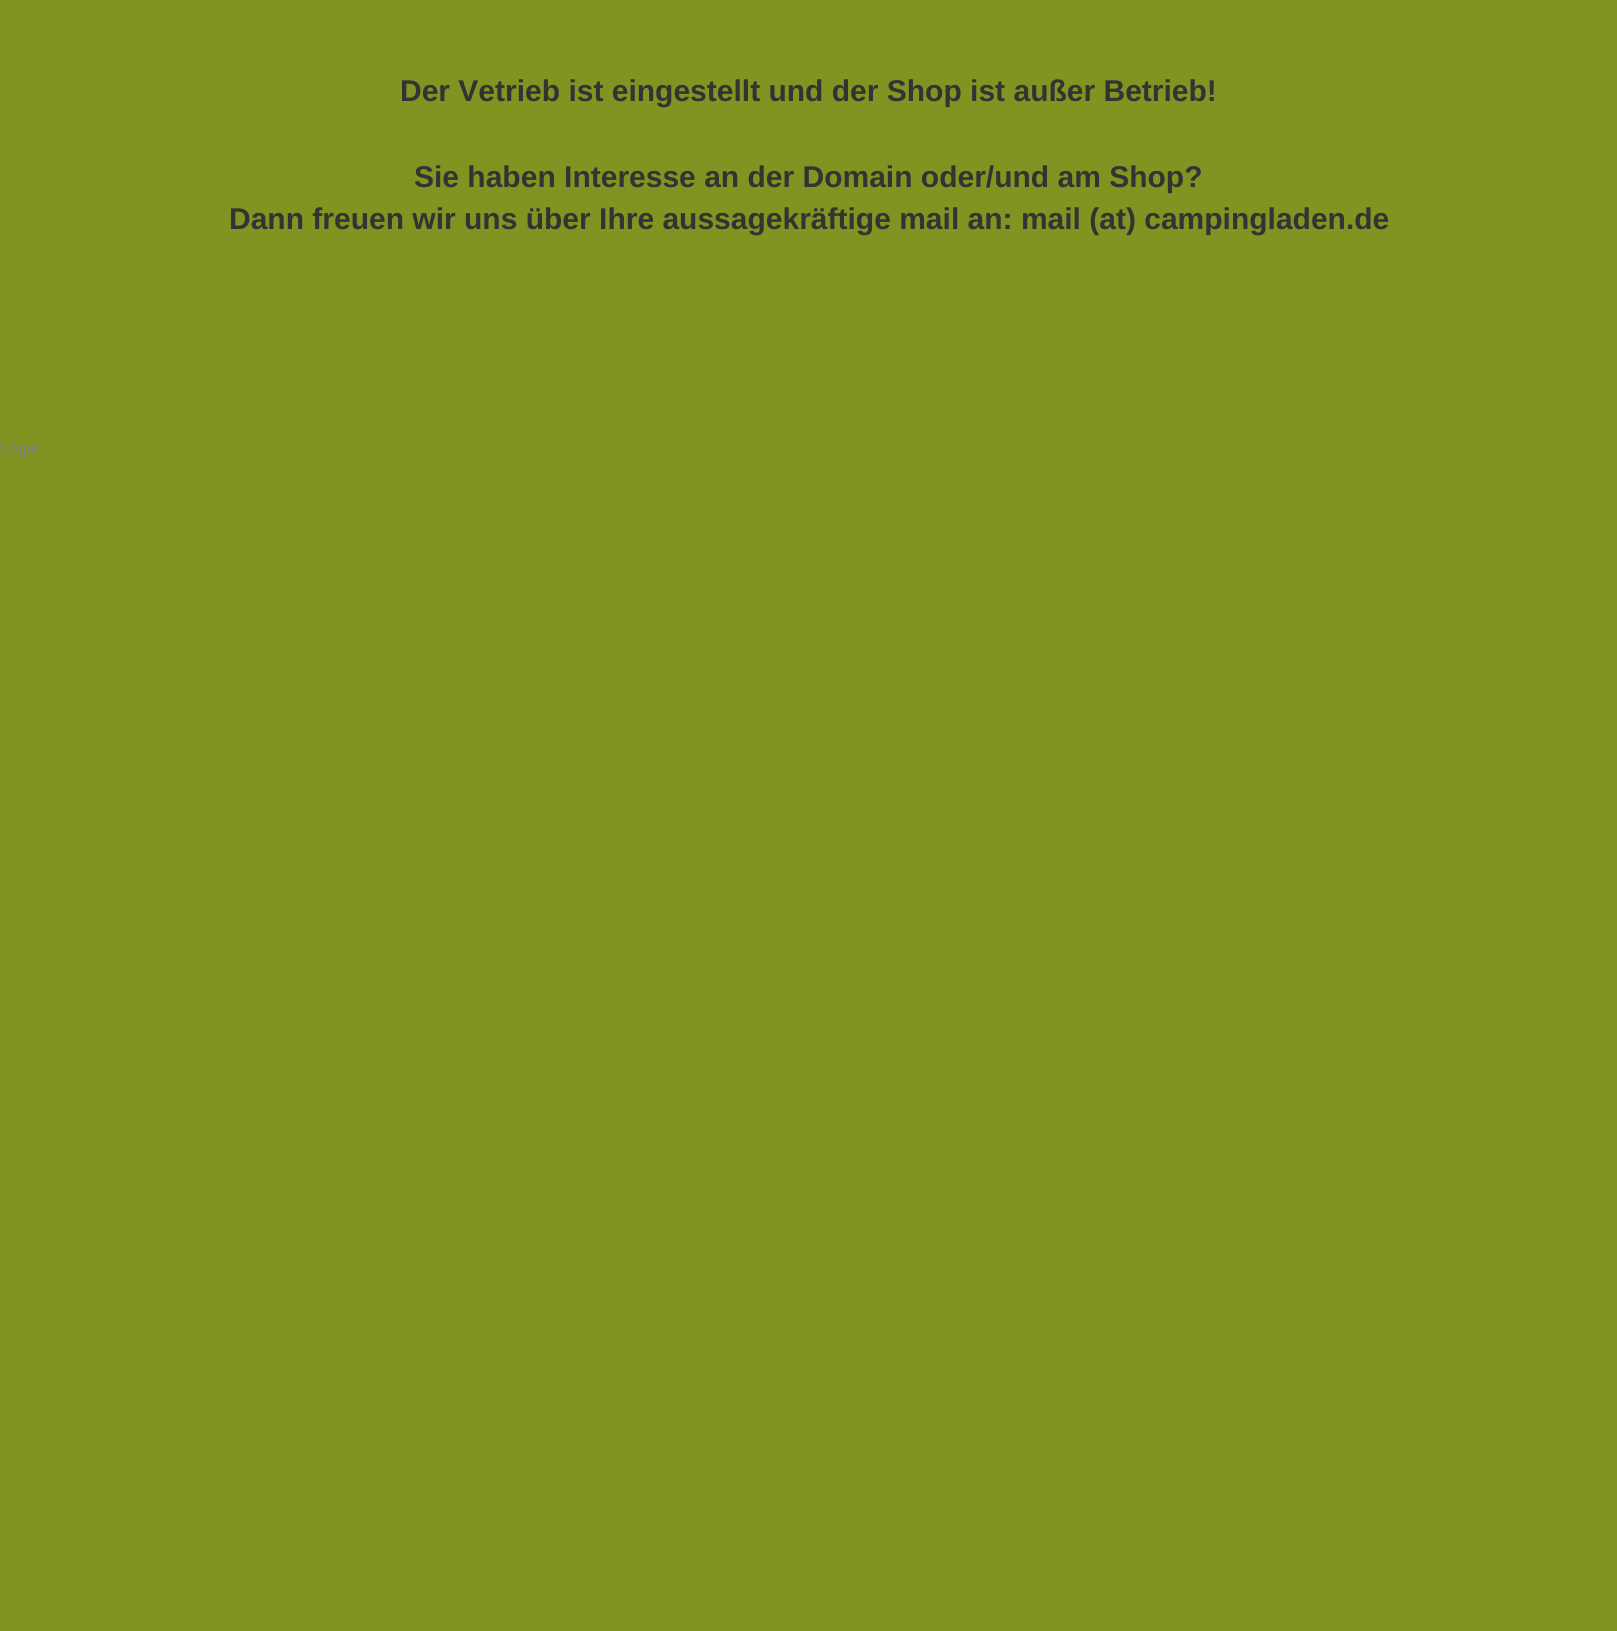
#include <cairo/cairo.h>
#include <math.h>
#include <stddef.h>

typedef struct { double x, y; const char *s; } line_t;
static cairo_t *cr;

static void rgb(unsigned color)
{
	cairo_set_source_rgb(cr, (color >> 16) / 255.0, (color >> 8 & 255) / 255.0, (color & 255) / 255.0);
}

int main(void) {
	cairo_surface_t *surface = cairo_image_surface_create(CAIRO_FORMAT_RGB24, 1617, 1631);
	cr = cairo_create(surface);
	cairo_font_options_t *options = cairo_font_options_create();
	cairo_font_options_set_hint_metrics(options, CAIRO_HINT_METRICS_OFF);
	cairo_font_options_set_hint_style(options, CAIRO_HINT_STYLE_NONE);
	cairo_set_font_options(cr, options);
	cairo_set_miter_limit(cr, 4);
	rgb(0x819320);
	cairo_paint(cr);
	cairo_select_font_face(cr, "Liberation Sans", CAIRO_FONT_SLANT_NORMAL, CAIRO_FONT_WEIGHT_BOLD);
	cairo_set_font_size(cr, 30);
	rgb(0x333333);
	{
		static const line_t items[] = {
			{400, 101, "Der Vetrieb ist eingestellt und der Shop ist außer Betrieb!"},
			{414, 187, "Sie haben Interesse an der Domain oder/und am Shop?"},
			{229, 229, "Dann freuen wir uns über Ihre aussagekräftige mail an: mail (at) campingladen.de"},
		};
		for (size_t i = 0; i < sizeof items / sizeof *items; i++) {
			cairo_move_to(cr, items[i].x, items[i].y);
			cairo_show_text(cr, items[i].s);
		}
	}
	cairo_select_font_face(cr, "Roboto", CAIRO_FONT_SLANT_NORMAL, CAIRO_FONT_WEIGHT_NORMAL);
	cairo_set_font_size(cr, 16);
	rgb(0x808080);
	cairo_move_to(cr, 0, 454);
	cairo_show_text(cr, "Login");
	cairo_surface_write_to_png(surface, "page.png");
	cairo_font_options_destroy(options);
	cairo_destroy(cr);
	cairo_surface_destroy(surface);
	return 0;
}
